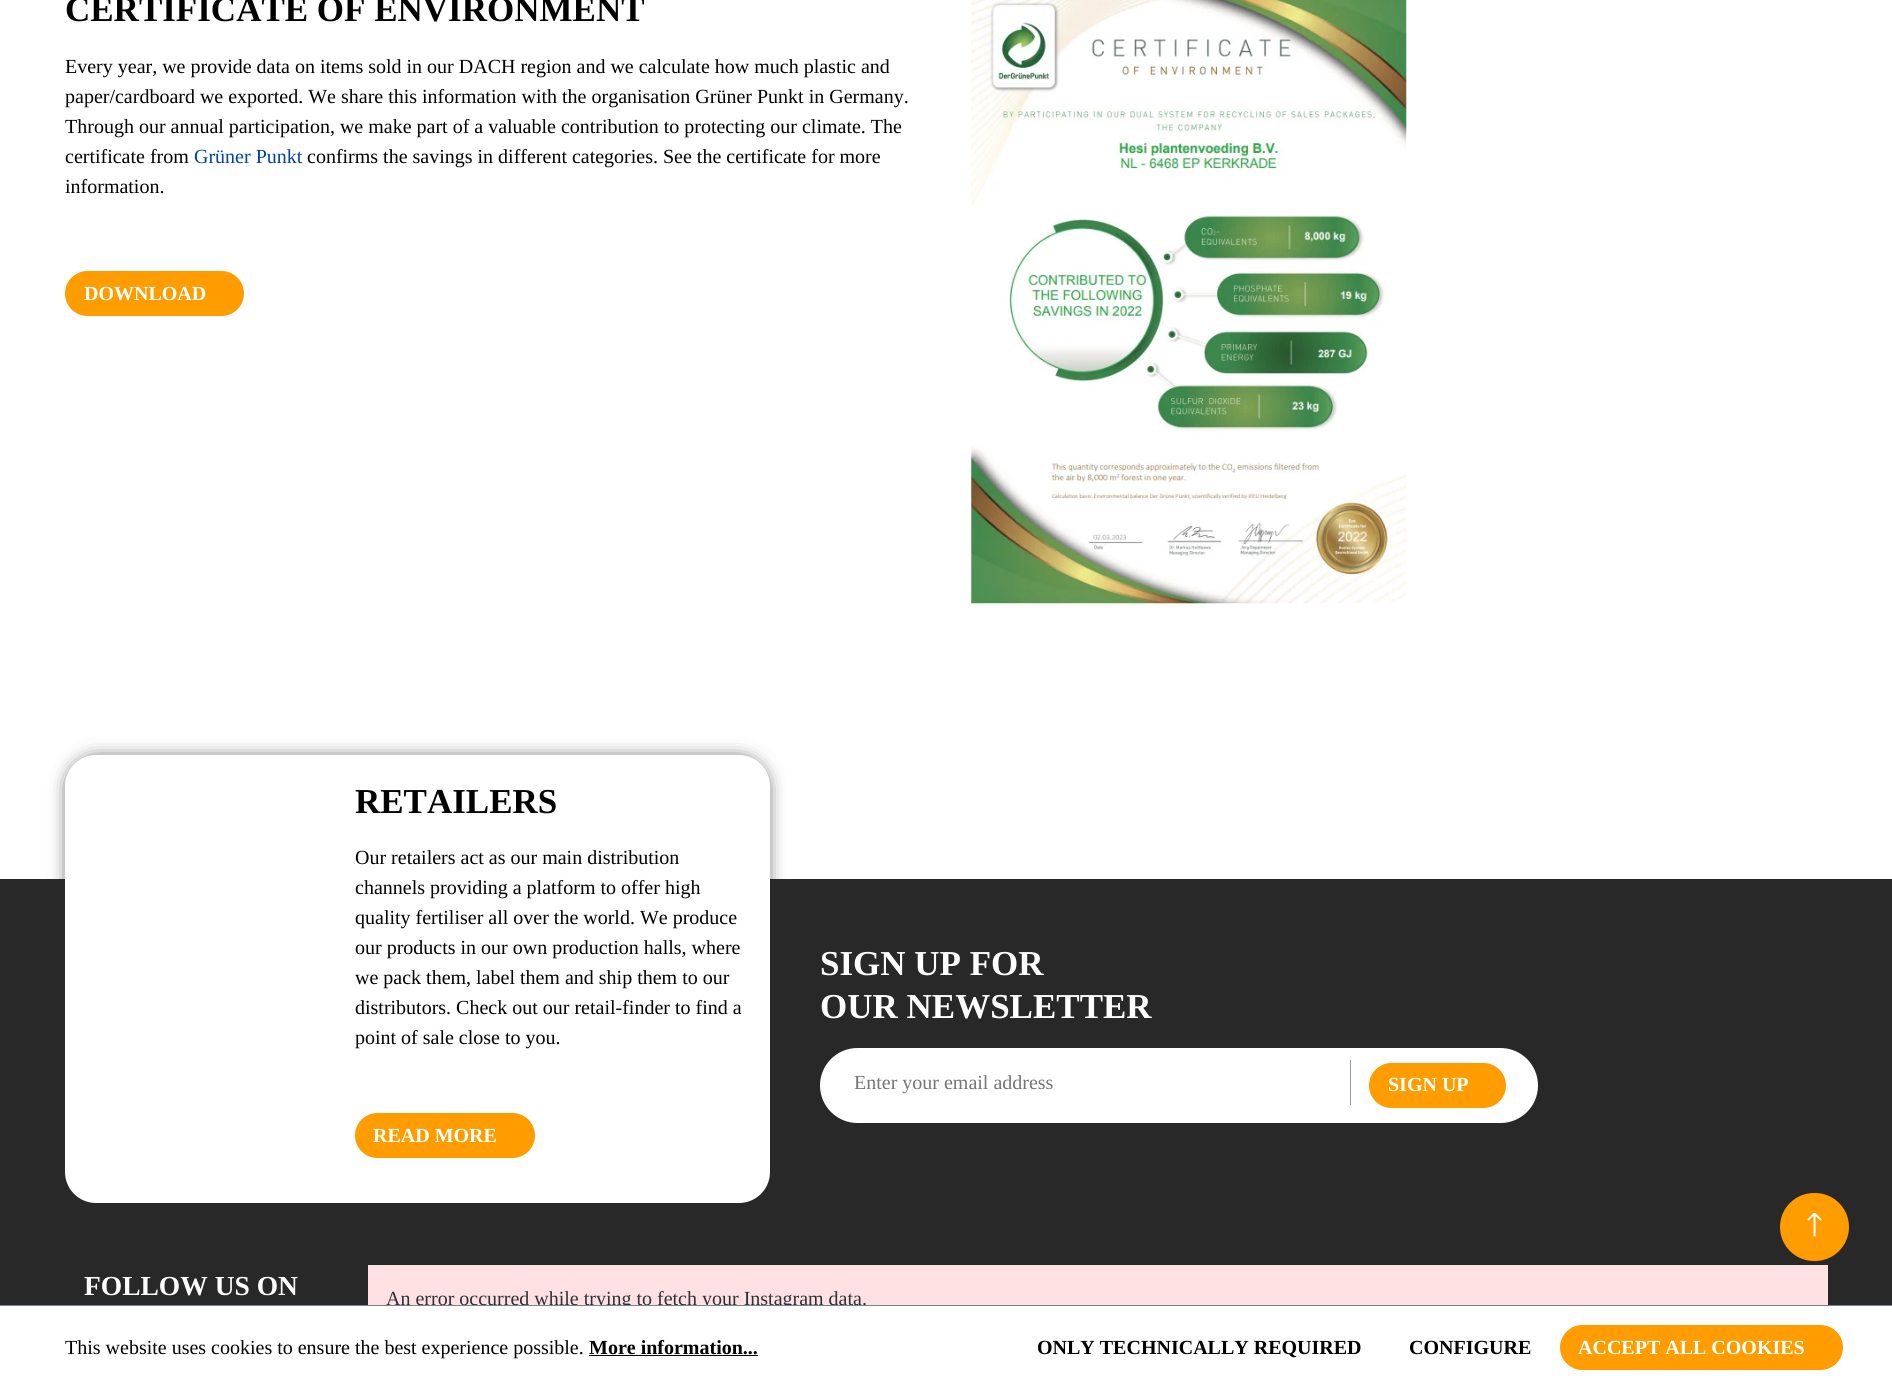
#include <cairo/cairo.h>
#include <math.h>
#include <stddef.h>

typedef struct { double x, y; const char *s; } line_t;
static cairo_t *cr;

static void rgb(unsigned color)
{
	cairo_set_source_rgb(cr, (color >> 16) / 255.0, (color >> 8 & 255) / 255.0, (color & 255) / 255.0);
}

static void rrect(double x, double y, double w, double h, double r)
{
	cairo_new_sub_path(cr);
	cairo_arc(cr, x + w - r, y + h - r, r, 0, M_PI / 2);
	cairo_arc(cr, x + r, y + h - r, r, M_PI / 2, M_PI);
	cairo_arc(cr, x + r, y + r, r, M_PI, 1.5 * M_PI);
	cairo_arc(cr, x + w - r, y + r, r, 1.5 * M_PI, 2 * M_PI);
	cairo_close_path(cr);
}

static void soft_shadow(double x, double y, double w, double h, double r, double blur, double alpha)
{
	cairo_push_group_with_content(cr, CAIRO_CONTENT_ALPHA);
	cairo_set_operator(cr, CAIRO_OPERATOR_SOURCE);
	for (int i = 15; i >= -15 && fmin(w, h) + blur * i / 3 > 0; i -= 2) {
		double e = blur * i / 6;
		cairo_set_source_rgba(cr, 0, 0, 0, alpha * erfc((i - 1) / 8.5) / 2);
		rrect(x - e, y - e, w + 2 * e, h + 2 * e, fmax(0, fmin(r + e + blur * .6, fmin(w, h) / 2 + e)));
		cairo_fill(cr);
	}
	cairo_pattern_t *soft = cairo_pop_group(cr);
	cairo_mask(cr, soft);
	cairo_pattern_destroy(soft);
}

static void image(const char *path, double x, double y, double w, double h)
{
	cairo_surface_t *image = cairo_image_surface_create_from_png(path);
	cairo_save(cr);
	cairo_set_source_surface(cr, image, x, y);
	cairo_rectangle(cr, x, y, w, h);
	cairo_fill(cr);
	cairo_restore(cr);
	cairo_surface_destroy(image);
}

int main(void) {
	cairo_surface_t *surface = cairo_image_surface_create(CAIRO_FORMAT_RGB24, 1892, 1388);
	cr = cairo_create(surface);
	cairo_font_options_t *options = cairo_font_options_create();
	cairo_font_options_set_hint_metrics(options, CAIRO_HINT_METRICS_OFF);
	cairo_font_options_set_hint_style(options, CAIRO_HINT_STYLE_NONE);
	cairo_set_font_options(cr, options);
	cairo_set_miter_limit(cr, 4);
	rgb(0xffffff);
	cairo_paint(cr);
	rgb(0xff9c00);
	rrect(65, 271, 179, 45, 22.5);
	cairo_fill(cr);
	image("img/1.png", 971, 0, 436, 604);
	rgb(0x282828);
	cairo_rectangle(cr, 0, 879, 1892, 426);
	cairo_fill(cr);
	rgb(0x282828);
	soft_shadow(70, 760, 695, 438, 26, 9.5, 1);
	rgb(0xffffff);
	rrect(65, 755, 705, 448, 31);
	cairo_fill(cr);
	rgb(0xff9c00);
	rrect(355, 1113, 180, 45, 22.5);
	cairo_fill(cr);
	rgb(0xffffff);
	rrect(820, 1048, 718, 75, 37.5);
	cairo_fill(cr);
	rgb(0x999999);
	cairo_rectangle(cr, 1350, 1060, 1, 45);
	cairo_fill(cr);
	rgb(0xff9c00);
	rrect(1369, 1063, 137, 45, 22.5);
	cairo_fill(cr);
	rgb(0xffe0e3);
	cairo_rectangle(cr, 368, 1265, 1460, 40);
	cairo_fill(cr);
	rgb(0xff9c00);
	rrect(1780, 1193, 69, 68, 34);
	cairo_fill(cr);
	image("img/2.png", 1807, 1213, 15, 24);
	rgb(0x000000);
	cairo_rectangle(cr, 589, 1355, 169, 1);
	cairo_fill(cr);
	rgb(0xff9c00);
	rrect(1560, 1325, 283, 45, 22.5);
	cairo_fill(cr);
	cairo_select_font_face(cr, "Liberation Serif", CAIRO_FONT_SLANT_NORMAL, CAIRO_FONT_WEIGHT_BOLD);
	cairo_set_font_size(cr, 35);
	rgb(0x000000);
	cairo_move_to(cr, 65, 21);
	cairo_show_text(cr, "CERTIFICATE OF ENVIRONMENT");
	cairo_select_font_face(cr, "Liberation Serif", CAIRO_FONT_SLANT_NORMAL, CAIRO_FONT_WEIGHT_NORMAL);
	cairo_set_font_size(cr, 20);
	{
		static const line_t items[] = {
			{65, 73, "Every year, we provide data on items sold in our DACH region and we calculate how much plastic and"},
			{65, 103, "paper/cardboard we exported. We share this information with the organisation Grüner Punkt in Germany."},
			{65, 133, "Through our annual participation, we make part of a valuable contribution to protecting our climate. The"},
			{65, 163, "certificate from"},
		};
		for (size_t i = 0; i < sizeof items / sizeof *items; i++) {
			cairo_move_to(cr, items[i].x, items[i].y);
			cairo_show_text(cr, items[i].s);
		}
	}
	rgb(0x0042a0);
	cairo_move_to(cr, 194, 163);
	cairo_show_text(cr, "Grüner Punkt");
	rgb(0x000000);
	cairo_move_to(cr, 307, 163);
	cairo_show_text(cr, "confirms the savings in different categories. See the certificate for more");
	cairo_move_to(cr, 65, 193);
	cairo_show_text(cr, "information.");
	cairo_select_font_face(cr, "Liberation Serif", CAIRO_FONT_SLANT_NORMAL, CAIRO_FONT_WEIGHT_BOLD);
	rgb(0xffffff);
	cairo_move_to(cr, 84, 300);
	cairo_show_text(cr, "DOWNLOAD");
	cairo_set_font_size(cr, 35);
	rgb(0x000000);
	cairo_move_to(cr, 355, 813);
	cairo_show_text(cr, "RETAILERS");
	cairo_select_font_face(cr, "Liberation Serif", CAIRO_FONT_SLANT_NORMAL, CAIRO_FONT_WEIGHT_NORMAL);
	cairo_set_font_size(cr, 20);
	{
		static const line_t items[] = {
			{355, 864, "Our retailers act as our main distribution"},
			{355, 894, "channels providing a platform to offer high"},
			{355, 924, "quality fertiliser all over the world. We produce"},
			{355, 954, "our products in our own production halls, where"},
			{355, 984, "we pack them, label them and ship them to our"},
			{355, 1014, "distributors. Check out our retail-finder to find a"},
			{355, 1044, "point of sale close to you."},
		};
		for (size_t i = 0; i < sizeof items / sizeof *items; i++) {
			cairo_move_to(cr, items[i].x, items[i].y);
			cairo_show_text(cr, items[i].s);
		}
	}
	cairo_select_font_face(cr, "Liberation Serif", CAIRO_FONT_SLANT_NORMAL, CAIRO_FONT_WEIGHT_BOLD);
	rgb(0xffffff);
	cairo_move_to(cr, 373, 1142);
	cairo_show_text(cr, "READ MORE");
	cairo_set_font_size(cr, 35);
	cairo_move_to(cr, 820, 975);
	cairo_show_text(cr, "SIGN UP FOR");
	cairo_move_to(cr, 820, 1018);
	cairo_show_text(cr, "OUR NEWSLETTER");
	cairo_select_font_face(cr, "Liberation Serif", CAIRO_FONT_SLANT_NORMAL, CAIRO_FONT_WEIGHT_NORMAL);
	cairo_set_font_size(cr, 20);
	rgb(0x757575);
	cairo_move_to(cr, 854, 1089);
	cairo_show_text(cr, "Enter your email address");
	cairo_select_font_face(cr, "Liberation Serif", CAIRO_FONT_SLANT_NORMAL, CAIRO_FONT_WEIGHT_BOLD);
	rgb(0xffffff);
	cairo_move_to(cr, 1388, 1091);
	cairo_show_text(cr, "SIGN UP");
	cairo_set_font_size(cr, 27.5);
	cairo_move_to(cr, 84, 1295);
	cairo_show_text(cr, "FOLLOW US ON");
	cairo_select_font_face(cr, "Liberation Serif", CAIRO_FONT_SLANT_NORMAL, CAIRO_FONT_WEIGHT_NORMAL);
	cairo_set_font_size(cr, 20);
	rgb(0x2b3136);
	cairo_move_to(cr, 386, 1305);
	cairo_show_text(cr, "An error occurred while trying to fetch your Instagram data.");
	rgb(0xffffff);
	cairo_rectangle(cr, 596, 1306, 196, 4);
	cairo_fill(cr);
	rgb(0x798490);
	cairo_rectangle(cr, 0, 1305, 1892, 1);
	cairo_fill(cr);
	rgb(0x000000);
	cairo_move_to(cr, 65, 1354);
	cairo_show_text(cr, "This website uses cookies to ensure the best experience possible.");
	cairo_select_font_face(cr, "Liberation Serif", CAIRO_FONT_SLANT_NORMAL, CAIRO_FONT_WEIGHT_BOLD);
	{
		static const line_t items[] = {
			{589, 1354, "More information..."},
			{1037, 1354, "ONLY TECHNICALLY REQUIRED"},
			{1409, 1354, "CONFIGURE"},
		};
		for (size_t i = 0; i < sizeof items / sizeof *items; i++) {
			cairo_move_to(cr, items[i].x, items[i].y);
			cairo_show_text(cr, items[i].s);
		}
	}
	rgb(0xffffff);
	cairo_move_to(cr, 1578, 1354);
	cairo_show_text(cr, "ACCEPT ALL COOKIES");
	cairo_surface_write_to_png(surface, "page.png");
	cairo_font_options_destroy(options);
	cairo_destroy(cr);
	cairo_surface_destroy(surface);
	return 0;
}
